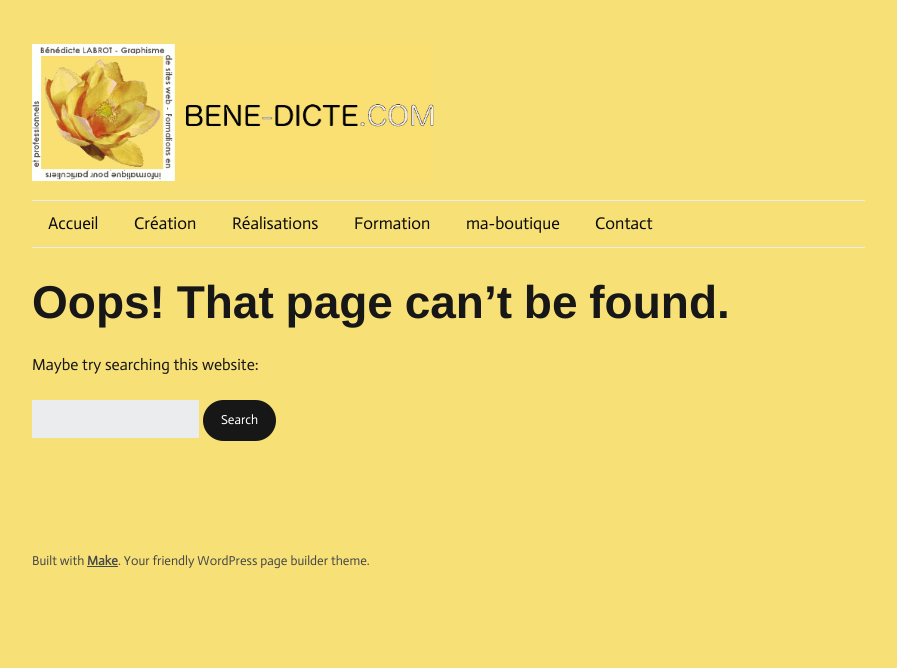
#include <cairo/cairo.h>
#include <math.h>
#include <stddef.h>

typedef struct { double x, y; const char *s; } line_t;
typedef struct { double x, y, w, h; unsigned color; } box_t;
static cairo_t *cr;

static void rgb(unsigned color)
{
	cairo_set_source_rgb(cr, (color >> 16) / 255.0, (color >> 8 & 255) / 255.0, (color & 255) / 255.0);
}

static void tracked(double x, double y, const char *s, double letter, double word)
{
	cairo_move_to(cr, x, y);
	while (*s) {
		char ch[5] = {0};
		int n = 0;
		do ch[n++] = *s++; while ((*s & 0xC0) == 0x80);
		cairo_show_text(cr, ch);
		cairo_rel_move_to(cr, letter + word * (*ch == ' '), 0);
	}
}

static void rrect(double x, double y, double w, double h, double r)
{
	cairo_new_sub_path(cr);
	cairo_arc(cr, x + w - r, y + h - r, r, 0, M_PI / 2);
	cairo_arc(cr, x + r, y + h - r, r, M_PI / 2, M_PI);
	cairo_arc(cr, x + r, y + r, r, M_PI, 1.5 * M_PI);
	cairo_arc(cr, x + w - r, y + r, r, 1.5 * M_PI, 2 * M_PI);
	cairo_close_path(cr);
}

static void image(const char *path, double x, double y, double w, double h)
{
	cairo_surface_t *image = cairo_image_surface_create_from_png(path);
	cairo_save(cr);
	cairo_set_source_surface(cr, image, x, y);
	cairo_rectangle(cr, x, y, w, h);
	cairo_fill(cr);
	cairo_restore(cr);
	cairo_surface_destroy(image);
}

int main(void) {
	cairo_surface_t *surface = cairo_image_surface_create(CAIRO_FORMAT_RGB24, 897, 668);
	cr = cairo_create(surface);
	cairo_font_options_t *options = cairo_font_options_create();
	cairo_font_options_set_hint_metrics(options, CAIRO_HINT_METRICS_OFF);
	cairo_font_options_set_hint_style(options, CAIRO_HINT_STYLE_NONE);
	cairo_set_font_options(cr, options);
	cairo_set_miter_limit(cr, 4);
	rgb(0xf7e076);
	cairo_paint(cr);
	image("img/1.png", 32, 44, 402, 137);
	{
		static const box_t items[] = {
			{32, 200, 833, 1, 0xeaecee},
			{32, 247, 833, 1, 0xeaecee},
			{32, 400, 167, 38, 0xeaecee},
		};
		for (size_t i = 0; i < sizeof items / sizeof *items; i++) {
			rgb(items[i].color);
			cairo_rectangle(cr, items[i].x, items[i].y, items[i].w, items[i].h);
			cairo_fill(cr);
		}
	}
	rgb(0x171717);
	rrect(203, 400, 73, 41, 20.5);
	cairo_fill(cr);
	rgb(0x464849);
	cairo_rectangle(cr, 87, 566, 31, 1);
	cairo_fill(cr);
	cairo_select_font_face(cr, "Actor", CAIRO_FONT_SLANT_NORMAL, CAIRO_FONT_WEIGHT_NORMAL);
	cairo_set_font_size(cr, 17);
	rgb(0x0a0a0a);
	{
		static const line_t items[] = {
			{48, 229, "Accueil"},
			{134, 229, "Création"},
			{232, 229, "Réalisations"},
			{354, 229, "Formation"},
			{466, 229, "ma-boutique"},
			{595, 229, "Contact"},
		};
		for (size_t i = 0; i < sizeof items / sizeof *items; i++) {
			cairo_move_to(cr, items[i].x, items[i].y);
			cairo_show_text(cr, items[i].s);
		}
	}
	cairo_select_font_face(cr, "Liberation Sans", CAIRO_FONT_SLANT_NORMAL, CAIRO_FONT_WEIGHT_BOLD);
	cairo_set_font_size(cr, 46);
	rgb(0x171717);
	tracked(32, 318, "Oops! That page can’t be found.", 0, -1);
	cairo_select_font_face(cr, "Actor", CAIRO_FONT_SLANT_NORMAL, CAIRO_FONT_WEIGHT_NORMAL);
	cairo_set_font_size(cr, 16);
	cairo_move_to(cr, 32, 370);
	cairo_show_text(cr, "Maybe try searching this website:");
	cairo_set_font_size(cr, 13);
	rgb(0xffffff);
	cairo_move_to(cr, 221, 424);
	cairo_show_text(cr, "Search");
	rgb(0x464849);
	cairo_move_to(cr, 32, 565);
	cairo_show_text(cr, "Built with");
	cairo_select_font_face(cr, "Actor", CAIRO_FONT_SLANT_NORMAL, CAIRO_FONT_WEIGHT_BOLD);
	cairo_move_to(cr, 87, 565);
	cairo_show_text(cr, "Make");
	cairo_select_font_face(cr, "Actor", CAIRO_FONT_SLANT_NORMAL, CAIRO_FONT_WEIGHT_NORMAL);
	cairo_move_to(cr, 118, 565);
	cairo_show_text(cr, ". Your friendly WordPress page builder theme.");
	cairo_surface_write_to_png(surface, "page.png");
	cairo_font_options_destroy(options);
	cairo_destroy(cr);
	cairo_surface_destroy(surface);
	return 0;
}
